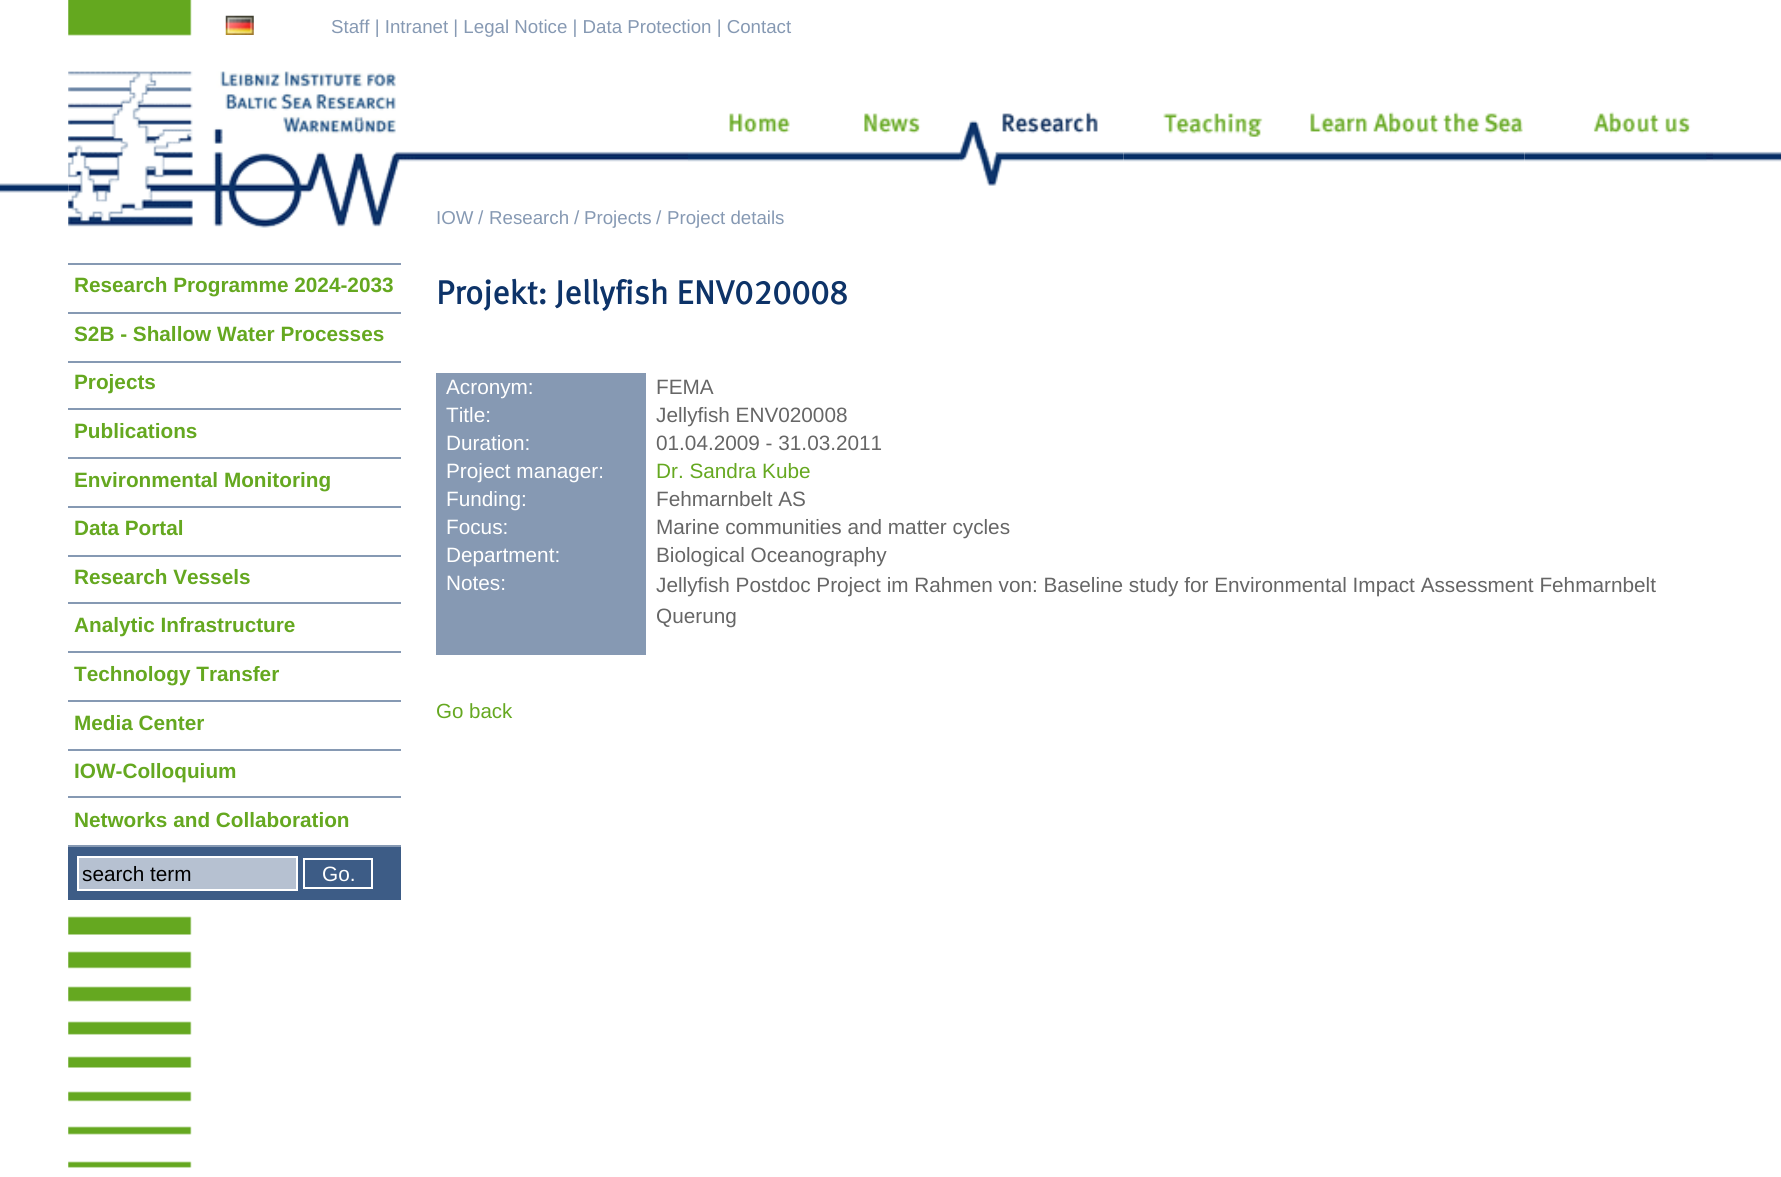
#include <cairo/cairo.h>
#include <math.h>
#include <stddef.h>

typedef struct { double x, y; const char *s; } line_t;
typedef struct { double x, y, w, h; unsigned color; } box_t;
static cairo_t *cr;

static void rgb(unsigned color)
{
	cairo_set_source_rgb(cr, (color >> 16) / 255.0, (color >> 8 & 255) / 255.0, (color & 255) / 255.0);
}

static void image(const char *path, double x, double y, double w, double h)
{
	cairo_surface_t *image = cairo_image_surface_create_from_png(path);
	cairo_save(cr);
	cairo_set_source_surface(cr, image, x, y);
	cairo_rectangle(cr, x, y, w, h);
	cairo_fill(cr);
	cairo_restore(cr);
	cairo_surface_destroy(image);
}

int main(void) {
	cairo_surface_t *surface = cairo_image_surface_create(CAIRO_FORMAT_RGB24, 1781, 1177);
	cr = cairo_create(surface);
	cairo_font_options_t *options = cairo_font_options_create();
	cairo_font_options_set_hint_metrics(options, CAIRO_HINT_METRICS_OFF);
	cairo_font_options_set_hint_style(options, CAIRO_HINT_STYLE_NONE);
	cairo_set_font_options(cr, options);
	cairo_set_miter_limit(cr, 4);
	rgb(0xffffff);
	cairo_paint(cr);
	image("img/1.png", 0, 151, 1781, 42);
	rgb(0xffffff);
	cairo_rectangle(cr, 68, 151, 1645, 42);
	cairo_fill(cr);
	image("img/2.png", 68, 0, 1645, 228);
	image("img/3.png", 225, 15, 29, 20);
	cairo_rectangle(cr, 688, 151, 1018, 11);
	cairo_fill(cr);
	image("img/4.png", 959, 111, 165, 75);
	image("img/5.png", 1267, 111, 257, 51);
	image("img/6.png", 1524, 111, 183, 51);
	image("img/7.png", 688, 113, 117, 49);
	image("img/8.png", 805, 113, 154, 49);
	image("img/9.png", 1123, 113, 144, 49);
	{
		static const box_t items[] = {
			{68, 845, 333, 2, 0x8699b3},
			{68, 263, 333, 2, 0x8699b3},
			{68, 312, 333, 2, 0x8699b3},
			{68, 361, 333, 2, 0x8699b3},
			{68, 408, 333, 2, 0x8699b3},
			{68, 457, 333, 2, 0x8699b3},
			{68, 506, 333, 2, 0x8699b3},
			{68, 555, 333, 2, 0x8699b3},
			{68, 602, 333, 2, 0x8699b3},
			{68, 651, 333, 2, 0x8699b3},
			{68, 700, 333, 2, 0x8699b3},
			{68, 749, 333, 2, 0x8699b3},
			{68, 796, 333, 2, 0x8699b3},
			{68, 847, 333, 53, 0x3d5c86},
		};
		for (size_t i = 0; i < sizeof items / sizeof *items; i++) {
			rgb(items[i].color);
			cairo_rectangle(cr, items[i].x, items[i].y, items[i].w, items[i].h);
			cairo_fill(cr);
		}
	}
	rgb(0xb6c1d1);
	cairo_rectangle(cr, 78, 857, 219, 33);
	cairo_fill_preserve(cr);
	rgb(0xffffff);
	cairo_stroke(cr);
	cairo_rectangle(cr, 304, 859, 68, 29);
	cairo_stroke(cr);
	image("img/10.png", 68, 916, 124, 252);
	rgb(0x8699b3);
	cairo_rectangle(cr, 436, 373, 210, 282);
	cairo_fill(cr);
	cairo_select_font_face(cr, "Liberation Sans", CAIRO_FONT_SLANT_NORMAL, CAIRO_FONT_WEIGHT_NORMAL);
	cairo_set_font_size(cr, 18.7);
	cairo_move_to(cr, 331, 33);
	cairo_show_text(cr, "Staff | Intranet | Legal Notice | Data Protection | Contact");
	cairo_move_to(cr, 436, 224);
	cairo_show_text(cr, "IOW");
	cairo_set_font_size(cr, 19);
	cairo_move_to(cr, 478, 224);
	cairo_show_text(cr, "/");
	cairo_set_font_size(cr, 18.7);
	cairo_move_to(cr, 489, 224);
	cairo_show_text(cr, "Research");
	cairo_set_font_size(cr, 19);
	cairo_move_to(cr, 574, 224);
	cairo_show_text(cr, "/");
	cairo_set_font_size(cr, 18.7);
	cairo_move_to(cr, 584, 224);
	cairo_show_text(cr, "Projects");
	cairo_set_font_size(cr, 19);
	cairo_move_to(cr, 656, 224);
	cairo_show_text(cr, "/");
	cairo_set_font_size(cr, 18.7);
	cairo_move_to(cr, 667, 224);
	cairo_show_text(cr, "Project details");
	cairo_select_font_face(cr, "Liberation Sans", CAIRO_FONT_SLANT_NORMAL, CAIRO_FONT_WEIGHT_BOLD);
	cairo_set_font_size(cr, 20.75);
	rgb(0x65a820);
	{
		static const line_t items[] = {
			{74, 292, "Research Programme 2024-2033"},
			{74, 341, "S2B - Shallow Water Processes"},
			{74, 389, "Projects"},
			{74, 438, "Publications"},
			{74, 487, "Environmental Monitoring"},
			{74, 535, "Data Portal"},
			{74, 584, "Research Vessels"},
			{74, 632, "Analytic Infrastructure"},
			{74, 681, "Technology Transfer"},
			{74, 730, "Media Center"},
			{74, 778, "IOW-Colloquium"},
			{74, 827, "Networks and Collaboration"},
		};
		for (size_t i = 0; i < sizeof items / sizeof *items; i++) {
			cairo_move_to(cr, items[i].x, items[i].y);
			cairo_show_text(cr, items[i].s);
		}
	}
	cairo_select_font_face(cr, "Liberation Sans", CAIRO_FONT_SLANT_NORMAL, CAIRO_FONT_WEIGHT_NORMAL);
	rgb(0x000000);
	cairo_move_to(cr, 82, 881);
	cairo_show_text(cr, "search term");
	rgb(0xffffff);
	cairo_move_to(cr, 322, 881);
	cairo_show_text(cr, "Go.");
	cairo_select_font_face(cr, "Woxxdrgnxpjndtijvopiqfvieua", CAIRO_FONT_SLANT_NORMAL, CAIRO_FONT_WEIGHT_BOLD);
	cairo_set_font_size(cr, 33.25);
	rgb(0x0d3368);
	cairo_move_to(cr, 436, 304);
	cairo_show_text(cr, "Projekt: Jellyfish ENV020008");
	cairo_select_font_face(cr, "Liberation Sans", CAIRO_FONT_SLANT_NORMAL, CAIRO_FONT_WEIGHT_NORMAL);
	cairo_set_font_size(cr, 20.75);
	rgb(0xffffff);
	cairo_move_to(cr, 446, 394);
	cairo_show_text(cr, "Acronym:");
	rgb(0x666666);
	cairo_move_to(cr, 656, 394);
	cairo_show_text(cr, "FEMA");
	rgb(0xffffff);
	cairo_move_to(cr, 446, 422);
	cairo_show_text(cr, "Title:");
	rgb(0x666666);
	cairo_move_to(cr, 656, 422);
	cairo_show_text(cr, "Jellyfish ENV020008");
	rgb(0xffffff);
	cairo_move_to(cr, 446, 450);
	cairo_show_text(cr, "Duration:");
	rgb(0x666666);
	cairo_move_to(cr, 656, 450);
	cairo_show_text(cr, "01.04.2009 - 31.03.2011");
	rgb(0xffffff);
	cairo_move_to(cr, 446, 478);
	cairo_show_text(cr, "Project manager:");
	rgb(0x65a820);
	cairo_move_to(cr, 656, 478);
	cairo_show_text(cr, "Dr. Sandra Kube");
	rgb(0xffffff);
	cairo_move_to(cr, 446, 506);
	cairo_show_text(cr, "Funding:");
	rgb(0x666666);
	cairo_move_to(cr, 656, 506);
	cairo_show_text(cr, "Fehmarnbelt AS");
	rgb(0xffffff);
	cairo_move_to(cr, 446, 534);
	cairo_show_text(cr, "Focus:");
	rgb(0x666666);
	cairo_move_to(cr, 656, 534);
	cairo_show_text(cr, "Marine communities and matter cycles");
	rgb(0xffffff);
	cairo_move_to(cr, 446, 562);
	cairo_show_text(cr, "Department:");
	rgb(0x666666);
	cairo_move_to(cr, 656, 562);
	cairo_show_text(cr, "Biological Oceanography");
	rgb(0xffffff);
	cairo_move_to(cr, 446, 590);
	cairo_show_text(cr, "Notes:");
	rgb(0x666666);
	cairo_move_to(cr, 656, 592);
	cairo_show_text(cr, "Jellyfish Postdoc Project im Rahmen von: Baseline study for Environmental Impact Assessment Fehmarnbelt");
	cairo_move_to(cr, 656, 623);
	cairo_show_text(cr, "Querung");
	cairo_set_font_size(cr, 20.5);
	rgb(0x65a820);
	cairo_move_to(cr, 436, 718);
	cairo_show_text(cr, "Go back");
	cairo_surface_write_to_png(surface, "page.png");
	cairo_font_options_destroy(options);
	cairo_destroy(cr);
	cairo_surface_destroy(surface);
	return 0;
}
